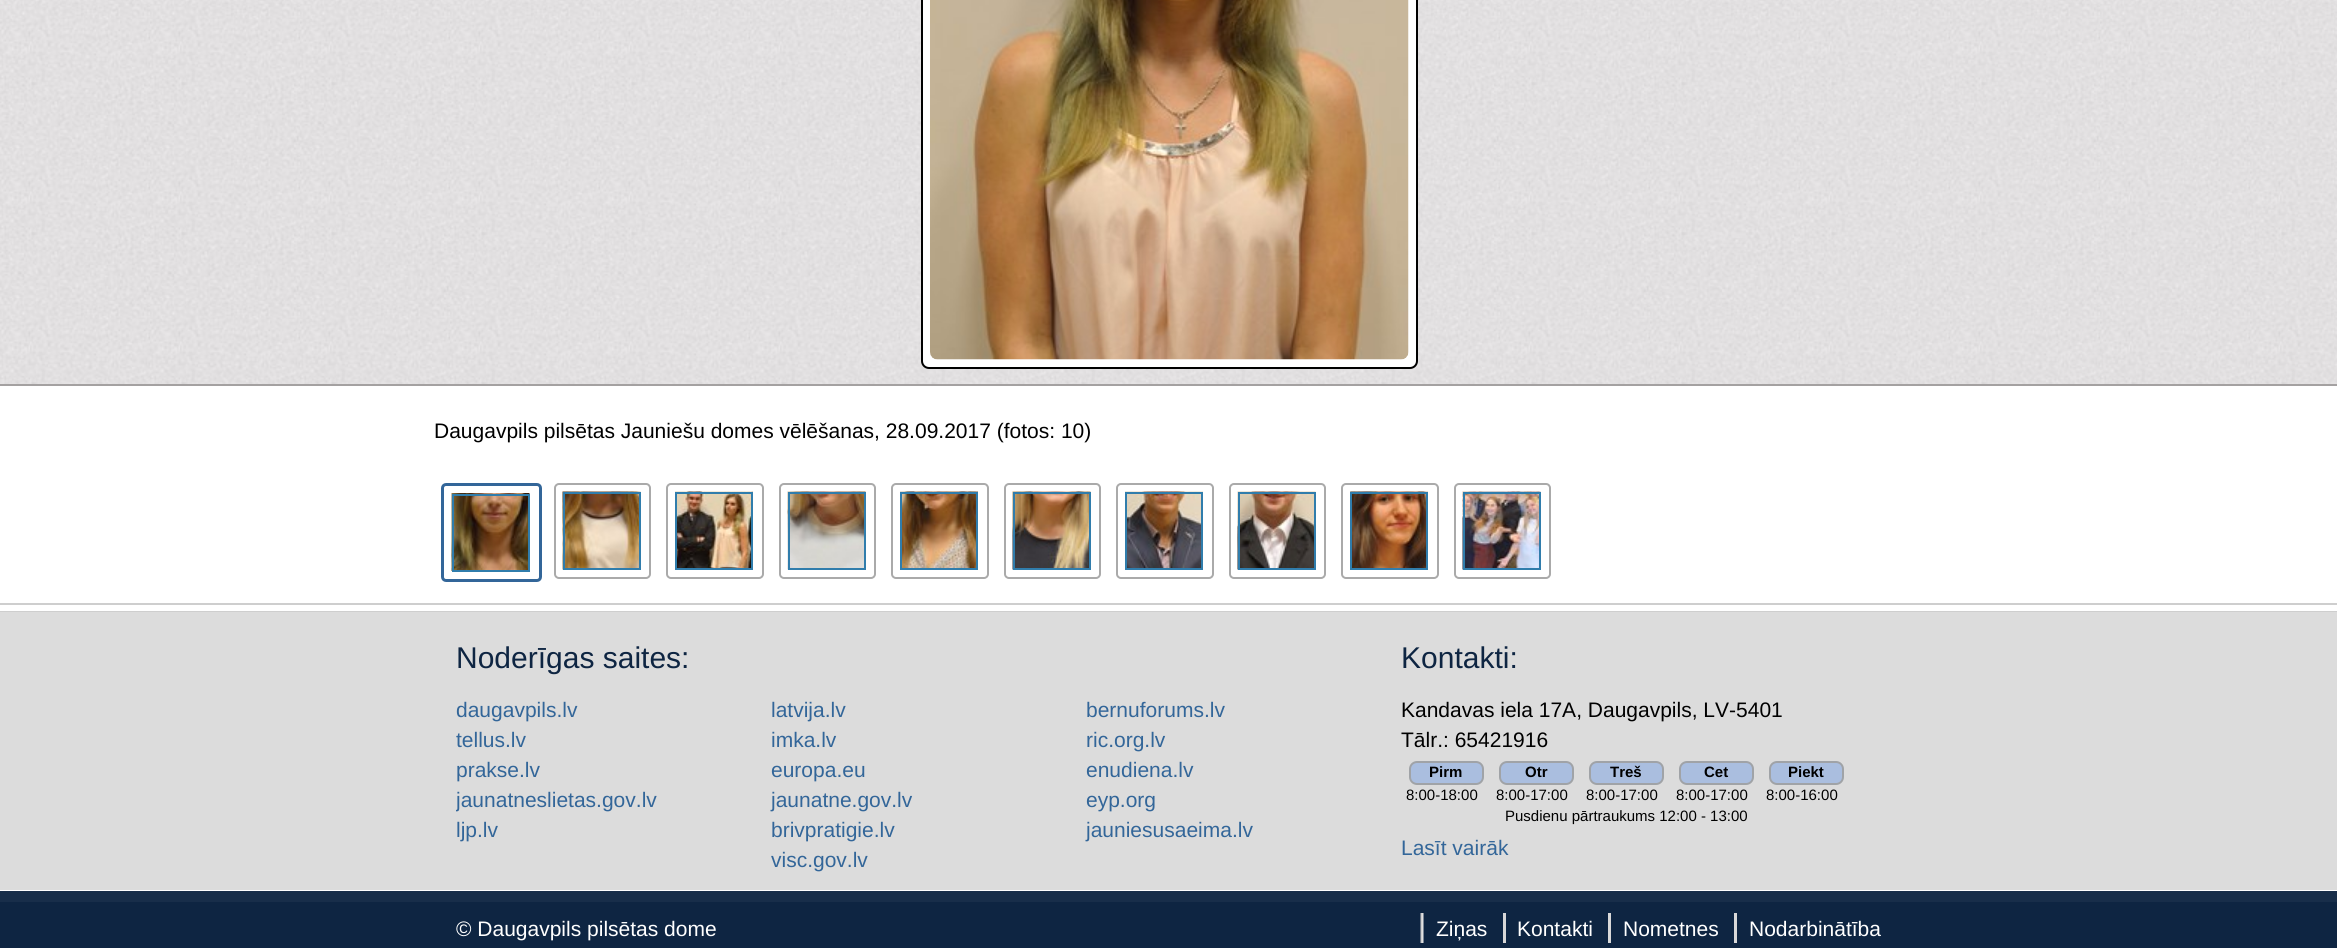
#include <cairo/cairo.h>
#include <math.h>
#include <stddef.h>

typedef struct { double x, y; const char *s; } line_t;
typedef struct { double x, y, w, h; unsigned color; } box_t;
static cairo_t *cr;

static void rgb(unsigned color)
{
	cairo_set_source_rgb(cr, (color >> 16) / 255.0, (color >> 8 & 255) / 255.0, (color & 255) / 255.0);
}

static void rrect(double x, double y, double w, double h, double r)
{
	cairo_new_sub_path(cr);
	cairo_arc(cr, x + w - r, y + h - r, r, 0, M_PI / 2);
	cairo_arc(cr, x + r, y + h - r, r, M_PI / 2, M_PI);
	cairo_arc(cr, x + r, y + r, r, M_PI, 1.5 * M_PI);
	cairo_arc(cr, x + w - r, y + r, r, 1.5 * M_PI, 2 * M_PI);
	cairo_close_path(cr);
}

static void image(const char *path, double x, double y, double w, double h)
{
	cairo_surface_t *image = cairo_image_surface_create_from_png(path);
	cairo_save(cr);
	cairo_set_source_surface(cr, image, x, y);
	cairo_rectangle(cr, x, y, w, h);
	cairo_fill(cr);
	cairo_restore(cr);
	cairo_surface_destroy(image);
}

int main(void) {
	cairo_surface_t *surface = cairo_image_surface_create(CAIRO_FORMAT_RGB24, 2337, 948);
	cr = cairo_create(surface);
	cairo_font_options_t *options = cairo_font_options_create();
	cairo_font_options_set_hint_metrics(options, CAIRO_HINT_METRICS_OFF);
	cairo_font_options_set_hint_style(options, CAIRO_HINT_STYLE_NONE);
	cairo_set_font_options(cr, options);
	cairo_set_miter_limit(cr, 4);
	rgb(0xffffff);
	cairo_paint(cr);
	image("img/1.png", 0, 0, 2337, 384);
	rgb(0xa4a1a1);
	cairo_rectangle(cr, 0, 384, 2337, 2);
	cairo_fill(cr);
	rgb(0xffffff);
	rrect(922, -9, 495, 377, 7);
	cairo_fill_preserve(cr);
	rgb(0x000000);
	cairo_stroke(cr);
	image("img/2.png", 930, 0, 479, 360);
	rrect(442.5, 484.5, 98, 96, 3.5);
	rgb(0x336699);
	cairo_set_line_width(cr, 3);
	cairo_stroke(cr);
	image("img/3.png", 451, 493, 79, 78);
	cairo_rectangle(cr, 453, 495, 76, 76);
	rgb(0x307dac);
	cairo_set_line_width(cr, 2);
	cairo_stroke(cr);
	rrect(555, 484, 95, 94, 4);
	rgb(0xaaaaaa);
	cairo_stroke(cr);
	image("img/4.png", 562, 491, 79, 79);
	cairo_rectangle(cr, 564, 493, 76, 76);
	rgb(0x307dac);
	cairo_stroke(cr);
	rrect(667, 484, 96, 94, 4);
	rgb(0xaaaaaa);
	cairo_stroke(cr);
	image("img/5.png", 675, 491, 78, 77);
	cairo_rectangle(cr, 676, 493, 76, 76);
	rgb(0x307dac);
	cairo_stroke(cr);
	rrect(780, 484, 95, 94, 4);
	rgb(0xaaaaaa);
	cairo_stroke(cr);
	image("img/6.png", 787, 491, 79, 79);
	cairo_rectangle(cr, 789, 493, 76, 76);
	rgb(0x307dac);
	cairo_stroke(cr);
	rrect(892, 484, 96, 94, 4);
	rgb(0xaaaaaa);
	cairo_stroke(cr);
	image("img/7.png", 900, 491, 78, 77);
	cairo_rectangle(cr, 901, 493, 76, 76);
	rgb(0x307dac);
	cairo_stroke(cr);
	rrect(1005, 484, 95, 94, 4);
	rgb(0xaaaaaa);
	cairo_stroke(cr);
	image("img/8.png", 1012, 491, 79, 79);
	cairo_rectangle(cr, 1014, 493, 76, 76);
	rgb(0x307dac);
	cairo_stroke(cr);
	rrect(1117, 484, 96, 94, 4);
	rgb(0xaaaaaa);
	cairo_stroke(cr);
	image("img/9.png", 1125, 491, 78, 77);
	cairo_rectangle(cr, 1126, 493, 76, 76);
	rgb(0x307dac);
	cairo_stroke(cr);
	rrect(1230, 484, 95, 94, 4);
	rgb(0xaaaaaa);
	cairo_stroke(cr);
	image("img/10.png", 1237, 491, 79, 79);
	cairo_rectangle(cr, 1239, 493, 76, 76);
	rgb(0x307dac);
	cairo_stroke(cr);
	rrect(1342, 484, 96, 94, 4);
	rgb(0xaaaaaa);
	cairo_stroke(cr);
	image("img/11.png", 1350, 491, 78, 77);
	cairo_rectangle(cr, 1351, 493, 76, 76);
	rgb(0x307dac);
	cairo_stroke(cr);
	rrect(1455, 484, 95, 94, 4);
	rgb(0xaaaaaa);
	cairo_stroke(cr);
	image("img/12.png", 1462, 491, 79, 79);
	cairo_rectangle(cr, 1464, 493, 76, 76);
	rgb(0x307dac);
	cairo_stroke(cr);
	{
		static const box_t items[] = {
			{0, 603, 2337, 2, 0xcecece},
			{0, 611, 2337, 1, 0xcecece},
			{0, 612, 2337, 278, 0xdcdcdc},
		};
		for (size_t i = 0; i < sizeof items / sizeof *items; i++) {
			rgb(items[i].color);
			cairo_rectangle(cr, items[i].x, items[i].y, items[i].w, items[i].h);
			cairo_fill(cr);
		}
	}
	rgb(0xaabedf);
	rrect(1410, 762, 73, 22, 7);
	cairo_fill_preserve(cr);
	rgb(0xa0a3a7);
	cairo_stroke(cr);
	rgb(0xaabedf);
	rrect(1500, 762, 73, 22, 7);
	cairo_fill_preserve(cr);
	rgb(0xa0a3a7);
	cairo_stroke(cr);
	rgb(0xaabedf);
	rrect(1590, 762, 73, 22, 7);
	cairo_fill_preserve(cr);
	rgb(0xa0a3a7);
	cairo_stroke(cr);
	rgb(0xaabedf);
	rrect(1680, 762, 73, 22, 7);
	cairo_fill_preserve(cr);
	rgb(0xa0a3a7);
	cairo_stroke(cr);
	rgb(0xaabedf);
	rrect(1770, 762, 73, 22, 7);
	cairo_fill_preserve(cr);
	rgb(0xa0a3a7);
	cairo_stroke(cr);
	rgb(0x0e2542);
	cairo_rectangle(cr, 0, 902, 2337, 46);
	cairo_fill(cr);
	rgb(0x182e4a);
	cairo_rectangle(cr, 0, 891, 2337, 11);
	cairo_fill(cr);
	image("img/13.png", 1420, 913, 4, 30);
	{
		static const box_t items[] = {
			{1503, 913, 3, 30, 0xd7d7d7},
			{1608, 913, 3, 30, 0xd9d9d9},
			{1734, 913, 3, 30, 0xd9d9d9},
		};
		for (size_t i = 0; i < sizeof items / sizeof *items; i++) {
			rgb(items[i].color);
			cairo_rectangle(cr, items[i].x, items[i].y, items[i].w, items[i].h);
			cairo_fill(cr);
		}
	}
	cairo_select_font_face(cr, "Liberation Sans", CAIRO_FONT_SLANT_NORMAL, CAIRO_FONT_WEIGHT_NORMAL);
	cairo_set_font_size(cr, 21);
	rgb(0x000000);
	cairo_move_to(cr, 434, 438);
	cairo_show_text(cr, "Daugavpils pilsētas Jauniešu domes vēlēšanas, 28.09.2017 (fotos: 10)");
	cairo_set_font_size(cr, 30);
	rgb(0x0e2542);
	cairo_move_to(cr, 456, 668);
	cairo_show_text(cr, "Noderīgas saites:");
	cairo_set_font_size(cr, 21);
	rgb(0x336699);
	{
		static const line_t items[] = {
			{456, 717, "daugavpils.lv"},
			{456, 747, "tellus.lv"},
			{456, 777, "prakse.lv"},
		};
		for (size_t i = 0; i < sizeof items / sizeof *items; i++) {
			cairo_move_to(cr, items[i].x, items[i].y);
			cairo_show_text(cr, items[i].s);
		}
	}
	cairo_save(cr);
	cairo_rectangle(cr, 456, 695, 945, 180);
	cairo_clip(cr);
	cairo_move_to(cr, 456, 807);
	cairo_show_text(cr, "jaunatneslietas.gov.lv");
	cairo_restore(cr);
	{
		static const line_t items[] = {
			{456, 837, "ljp.lv"},
			{771, 717, "latvija.lv"},
			{771, 747, "imka.lv"},
			{771, 777, "europa.eu"},
			{771, 807, "jaunatne.gov.lv"},
			{771, 837, "brivpratigie.lv"},
			{771, 867, "visc.gov.lv"},
			{1086, 717, "bernuforums.lv"},
			{1086, 747, "ric.org.lv"},
			{1086, 777, "enudiena.lv"},
			{1086, 807, "eyp.org"},
			{1086, 837, "jauniesusaeima.lv"},
		};
		for (size_t i = 0; i < sizeof items / sizeof *items; i++) {
			cairo_move_to(cr, items[i].x, items[i].y);
			cairo_show_text(cr, items[i].s);
		}
	}
	cairo_set_font_size(cr, 30);
	rgb(0x0e2542);
	cairo_move_to(cr, 1401, 668);
	cairo_show_text(cr, "Kontakti:");
	cairo_set_font_size(cr, 21);
	rgb(0x000000);
	cairo_move_to(cr, 1401, 717);
	cairo_show_text(cr, "Kandavas iela 17A, Daugavpils, LV-5401");
	cairo_move_to(cr, 1401, 747);
	cairo_show_text(cr, "Tālr.: 65421916");
	cairo_select_font_face(cr, "Liberation Sans", CAIRO_FONT_SLANT_NORMAL, CAIRO_FONT_WEIGHT_BOLD);
	cairo_set_font_size(cr, 15);
	{
		static const line_t items[] = {
			{1429, 777, "Pirm"},
			{1525, 777, "Otr"},
			{1610, 777, "Treš"},
			{1704, 777, "Cet"},
			{1788, 777, "Piekt"},
		};
		for (size_t i = 0; i < sizeof items / sizeof *items; i++) {
			cairo_move_to(cr, items[i].x, items[i].y);
			cairo_show_text(cr, items[i].s);
		}
	}
	cairo_select_font_face(cr, "Liberation Sans", CAIRO_FONT_SLANT_NORMAL, CAIRO_FONT_WEIGHT_NORMAL);
	{
		static const line_t items[] = {
			{1406, 800, "8:00-18:00"},
			{1496, 800, "8:00-17:00"},
			{1586, 800, "8:00-17:00"},
			{1676, 800, "8:00-17:00"},
			{1766, 800, "8:00-16:00"},
			{1505, 821, "Pusdienu pārtraukums 12:00 - 13:00"},
		};
		for (size_t i = 0; i < sizeof items / sizeof *items; i++) {
			cairo_move_to(cr, items[i].x, items[i].y);
			cairo_show_text(cr, items[i].s);
		}
	}
	cairo_set_font_size(cr, 21);
	rgb(0x336699);
	cairo_move_to(cr, 1401, 855);
	cairo_show_text(cr, "Lasīt vairāk");
	rgb(0xffffff);
	{
		static const line_t items[] = {
			{456, 936, "© Daugavpils pilsētas dome"},
			{1436, 936, "Ziņas"},
			{1517, 936, "Kontakti"},
			{1623, 936, "Nometnes"},
			{1749, 936, "Nodarbinātība"},
		};
		for (size_t i = 0; i < sizeof items / sizeof *items; i++) {
			cairo_move_to(cr, items[i].x, items[i].y);
			cairo_show_text(cr, items[i].s);
		}
	}
	cairo_surface_write_to_png(surface, "page.png");
	cairo_font_options_destroy(options);
	cairo_destroy(cr);
	cairo_surface_destroy(surface);
	return 0;
}
